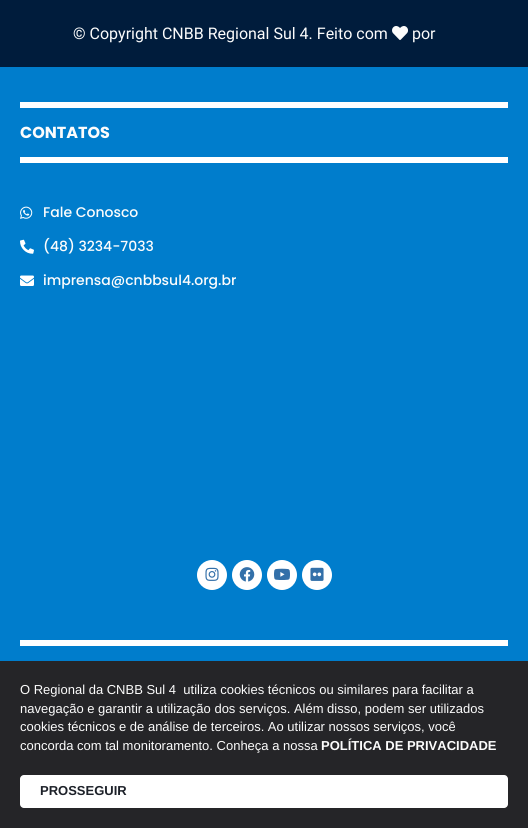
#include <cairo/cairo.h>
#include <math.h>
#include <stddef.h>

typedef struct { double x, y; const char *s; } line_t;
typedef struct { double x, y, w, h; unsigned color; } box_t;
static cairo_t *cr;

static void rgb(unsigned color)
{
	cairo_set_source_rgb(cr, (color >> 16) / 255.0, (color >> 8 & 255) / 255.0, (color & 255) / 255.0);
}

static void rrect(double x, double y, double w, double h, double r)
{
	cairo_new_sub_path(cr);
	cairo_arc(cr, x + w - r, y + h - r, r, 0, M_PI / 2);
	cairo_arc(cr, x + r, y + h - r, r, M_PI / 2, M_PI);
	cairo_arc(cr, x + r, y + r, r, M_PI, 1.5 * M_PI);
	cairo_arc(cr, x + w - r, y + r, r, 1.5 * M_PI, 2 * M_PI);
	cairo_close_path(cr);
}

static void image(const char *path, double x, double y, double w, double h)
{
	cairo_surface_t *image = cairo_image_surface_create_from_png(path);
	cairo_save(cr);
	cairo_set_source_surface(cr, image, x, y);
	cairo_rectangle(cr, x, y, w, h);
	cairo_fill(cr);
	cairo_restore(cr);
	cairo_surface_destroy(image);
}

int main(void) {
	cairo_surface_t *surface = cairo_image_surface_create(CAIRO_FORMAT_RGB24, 528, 828);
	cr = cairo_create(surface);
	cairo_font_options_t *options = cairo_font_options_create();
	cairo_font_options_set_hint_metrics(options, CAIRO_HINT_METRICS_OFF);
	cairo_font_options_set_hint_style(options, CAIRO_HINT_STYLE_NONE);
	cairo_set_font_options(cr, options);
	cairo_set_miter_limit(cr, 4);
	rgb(0x001c3c);
	cairo_paint(cr);
	image("img/1.png", 392, 26, 16, 14);
	{
		static const box_t items[] = {
			{0, 67, 528, 594, 0x007dcc},
			{20, 102, 488, 6, 0xffffff},
			{20, 157, 488, 6, 0xffffff},
		};
		for (size_t i = 0; i < sizeof items / sizeof *items; i++) {
			rgb(items[i].color);
			cairo_rectangle(cr, items[i].x, items[i].y, items[i].w, items[i].h);
			cairo_fill(cr);
		}
	}
	image("img/2.png", 20, 206, 13, 13);
	image("img/3.png", 20, 239, 14, 15);
	image("img/4.png", 20, 275, 14, 11);
	cairo_arc(cr, 212, 575, 15, 0, 2 * M_PI);
	cairo_fill(cr);
	image("img/5.png", 205, 567, 14, 14);
	cairo_arc(cr, 247, 575, 15, 0, 2 * M_PI);
	cairo_fill(cr);
	image("img/6.png", 239, 567, 16, 15);
	cairo_arc(cr, 282, 575, 15, 0, 2 * M_PI);
	cairo_fill(cr);
	image("img/7.png", 274, 568, 16, 12);
	cairo_arc(cr, 317, 575, 15, 0, 2 * M_PI);
	cairo_fill(cr);
	image("img/8.png", 310, 567, 14, 14);
	cairo_rectangle(cr, 20, 640, 488, 6);
	cairo_fill(cr);
	rgb(0x252528);
	cairo_rectangle(cr, 0, 661, 528, 167);
	cairo_fill(cr);
	rgb(0xffffff);
	rrect(20, 775, 488, 33, 4);
	cairo_fill(cr);
	cairo_select_font_face(cr, "Roboto", CAIRO_FONT_SLANT_NORMAL, CAIRO_FONT_WEIGHT_NORMAL);
	cairo_set_font_size(cr, 16);
	rgb(0xfcfcfc);
	cairo_move_to(cr, 73, 39);
	cairo_show_text(cr, "© Copyright CNBB Regional Sul 4. Feito com");
	cairo_move_to(cr, 412, 39);
	cairo_show_text(cr, "por");
	cairo_select_font_face(cr, "Poppins", CAIRO_FONT_SLANT_NORMAL, CAIRO_FONT_WEIGHT_BOLD);
	cairo_move_to(cr, 20, 138);
	cairo_show_text(cr, "CONTATOS");
	cairo_select_font_face(cr, "Poppins Medium", CAIRO_FONT_SLANT_NORMAL, CAIRO_FONT_WEIGHT_NORMAL);
	cairo_set_font_size(cr, 14);
	{
		static const line_t items[] = {
			{43, 217, "Fale Conosco"},
			{43, 251, "(48) 3234-7033"},
			{43, 285, "imprensa@cnbbsul4.org.br"},
		};
		for (size_t i = 0; i < sizeof items / sizeof *items; i++) {
			cairo_move_to(cr, items[i].x, items[i].y);
			cairo_show_text(cr, items[i].s);
		}
	}
	cairo_select_font_face(cr, "Liberation Sans", CAIRO_FONT_SLANT_NORMAL, CAIRO_FONT_WEIGHT_NORMAL);
	cairo_set_font_size(cr, 13);
	{
		static const line_t items[] = {
			{20, 694, "O Regional da CNBB Sul 4  utiliza cookies técnicos ou similares para facilitar a"},
			{20, 713, "navegação e garantir a utilização dos serviços. Além disso, podem ser utilizados"},
			{20, 731, "cookies técnicos e de análise de terceiros. Ao utilizar nossos serviços, você"},
			{20, 750, "concorda com tal monitoramento. Conheça a nossa"},
		};
		for (size_t i = 0; i < sizeof items / sizeof *items; i++) {
			cairo_move_to(cr, items[i].x, items[i].y);
			cairo_show_text(cr, items[i].s);
		}
	}
	cairo_select_font_face(cr, "Liberation Sans", CAIRO_FONT_SLANT_NORMAL, CAIRO_FONT_WEIGHT_BOLD);
	cairo_move_to(cr, 321, 750);
	cairo_show_text(cr, "POLÍTICA DE PRIVACIDADE");
	rgb(0x1d2129);
	cairo_move_to(cr, 40, 795);
	cairo_show_text(cr, "PROSSEGUIR");
	cairo_surface_write_to_png(surface, "page.png");
	cairo_font_options_destroy(options);
	cairo_destroy(cr);
	cairo_surface_destroy(surface);
	return 0;
}
